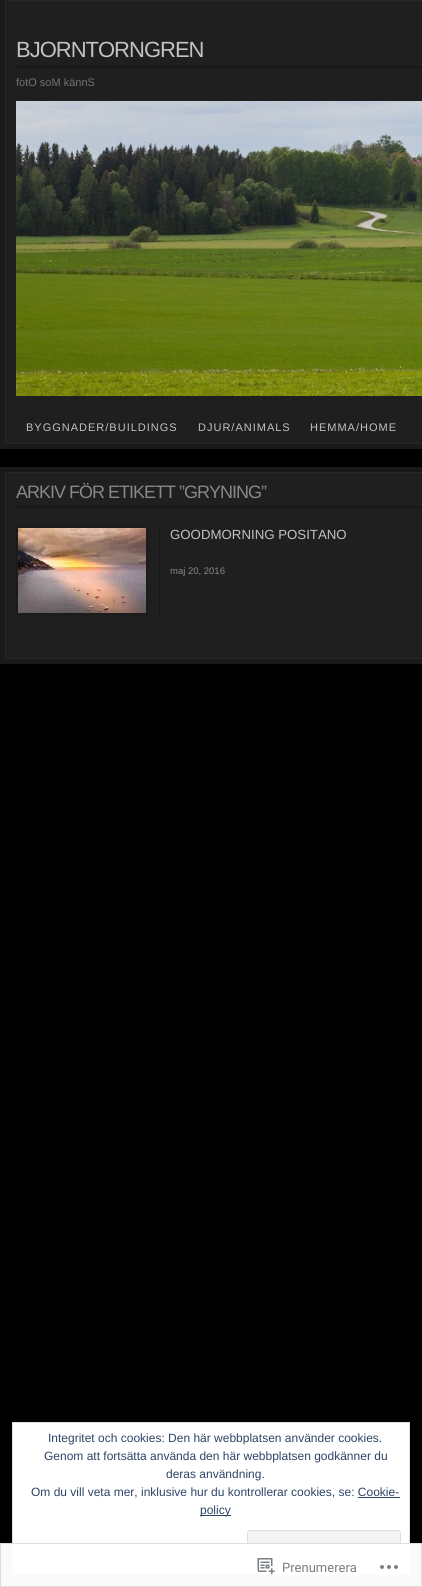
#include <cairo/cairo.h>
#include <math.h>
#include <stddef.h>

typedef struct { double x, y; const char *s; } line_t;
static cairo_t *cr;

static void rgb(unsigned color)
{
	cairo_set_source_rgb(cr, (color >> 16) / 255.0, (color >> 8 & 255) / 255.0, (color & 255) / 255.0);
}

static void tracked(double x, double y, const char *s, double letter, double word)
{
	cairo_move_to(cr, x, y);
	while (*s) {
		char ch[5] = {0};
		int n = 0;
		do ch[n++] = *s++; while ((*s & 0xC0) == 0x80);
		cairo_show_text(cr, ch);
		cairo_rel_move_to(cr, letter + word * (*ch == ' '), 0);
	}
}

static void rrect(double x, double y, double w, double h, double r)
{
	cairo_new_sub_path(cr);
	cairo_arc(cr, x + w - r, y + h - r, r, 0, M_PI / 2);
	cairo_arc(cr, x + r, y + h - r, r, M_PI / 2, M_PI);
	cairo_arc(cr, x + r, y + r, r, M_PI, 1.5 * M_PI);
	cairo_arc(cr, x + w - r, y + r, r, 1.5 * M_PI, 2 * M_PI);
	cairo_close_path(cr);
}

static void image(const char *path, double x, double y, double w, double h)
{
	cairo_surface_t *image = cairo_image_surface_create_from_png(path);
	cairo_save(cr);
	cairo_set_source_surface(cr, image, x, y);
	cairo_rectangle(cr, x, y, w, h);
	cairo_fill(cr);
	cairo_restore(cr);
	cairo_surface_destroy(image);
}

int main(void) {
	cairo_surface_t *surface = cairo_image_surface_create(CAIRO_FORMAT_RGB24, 422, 1587);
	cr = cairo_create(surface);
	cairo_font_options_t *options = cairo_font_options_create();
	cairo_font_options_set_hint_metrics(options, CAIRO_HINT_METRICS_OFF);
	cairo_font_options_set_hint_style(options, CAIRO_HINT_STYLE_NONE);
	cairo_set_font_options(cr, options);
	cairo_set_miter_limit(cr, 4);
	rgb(0x000000);
	cairo_paint(cr);
	rgb(0x1a1a1a);
	cairo_rectangle(cr, 0, 0, 422, 449);
	cairo_fill(cr);
	rgb(0x1f1f1f);
	cairo_rectangle(cr, 5.5, 0.5, 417, 443);
	cairo_fill_preserve(cr);
	rgb(0x272727);
	cairo_set_line_width(cr, 1);
	cairo_stroke(cr);
	rgb(0x181818);
	cairo_rectangle(cr, 16, 66, 406, 2);
	cairo_fill(cr);
	image("img/1.png", 16, 101, 406, 295);
	rgb(0x1a1a1a);
	cairo_rectangle(cr, 0, 467, 422, 197);
	cairo_fill(cr);
	rgb(0x1f1f1f);
	cairo_rectangle(cr, 5.5, 472.5, 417, 186);
	cairo_fill_preserve(cr);
	rgb(0x272727);
	cairo_stroke(cr);
	rgb(0x181818);
	cairo_rectangle(cr, 16, 506, 406, 2);
	cairo_fill(cr);
	cairo_rectangle(cr, 159, 526, 1, 94);
	cairo_fill(cr);
	cairo_rectangle(cr, 16.5, 526.5, 131, 88);
	cairo_stroke(cr);
	image("img/2.png", 18, 528, 128, 85);
	rgb(0xffffff);
	cairo_rectangle(cr, 12.5, 1422.5, 397, 152);
	cairo_fill_preserve(cr);
	rgb(0xdedede);
	cairo_stroke(cr);
	rgb(0x2e4467);
	cairo_rectangle(cr, 358, 1497, 42, 1);
	cairo_fill(cr);
	cairo_rectangle(cr, 200, 1515, 31, 1);
	cairo_fill(cr);
	rgb(0xf3f3f3);
	rrect(247.5, 1530.5, 153, 35, 2.5);
	cairo_fill_preserve(cr);
	rgb(0xdedede);
	cairo_stroke(cr);
	cairo_set_source_rgba(cr, 1, 1, 1, 0.98);
	cairo_rectangle(cr, 0, 1543, 422, 44);
	cairo_fill(cr);
	cairo_rectangle(cr, 0.5, 1543.5, 421, 43);
	cairo_set_source_rgba(cr, 0.863, 0.863, 0.871, 0.98);
	cairo_stroke(cr);
	image("img/3.png", 257, 1558, 18, 17);
	image("img/4.png", 380, 1565, 18, 4);
	cairo_select_font_face(cr, "Liberation Sans", CAIRO_FONT_SLANT_NORMAL, CAIRO_FONT_WEIGHT_NORMAL);
	cairo_set_font_size(cr, 22);
	rgb(0xc2c2c2);
	tracked(16, 57, "BJORNTORNGREN", -1, 0);
	cairo_set_font_size(cr, 11);
	rgb(0x727272);
	cairo_move_to(cr, 16, 86);
	cairo_show_text(cr, "fotO soM kännS");
	rgb(0xc2c2c2);
	{
		static const line_t items[] = {
			{26, 431, "BYGGNADER/BUILDINGS"},
			{198, 431, "DJUR/ANIMALS"},
			{310, 431, "HEMMA/HOME"},
		};
		for (size_t i = 0; i < sizeof items / sizeof *items; i++) {
			tracked(items[i].x, items[i].y, items[i].s, 1, 0);
		}
	}
	cairo_set_font_size(cr, 18);
	rgb(0x888888);
	tracked(16, 498, "ARKIV FÖR ETIKETT ”GRYNING”", -1, 0);
	cairo_set_font_size(cr, 13.25);
	rgb(0xc2c2c2);
	cairo_move_to(cr, 170, 539);
	cairo_show_text(cr, "GOODMORNING POSITANO");
	cairo_set_font_size(cr, 9.5);
	rgb(0x888888);
	cairo_move_to(cr, 170, 574);
	cairo_show_text(cr, "maj 20, 2016");
	cairo_set_font_size(cr, 12);
	rgb(0x2e4467);
	{
		static const line_t items[] = {
			{48, 1442, "Integritet och cookies: Den här webbplatsen använder cookies."},
			{44, 1460, "Genom att fortsätta använda den här webbplatsen godkänner du"},
			{166, 1478, "deras användning."},
			{31, 1496, "Om du vill veta mer, inklusive hur du kontrollerar cookies, se: Cookie-"},
			{200, 1514, "policy"},
		};
		for (size_t i = 0; i < sizeof items / sizeof *items; i++) {
			cairo_move_to(cr, items[i].x, items[i].y);
			cairo_show_text(cr, items[i].s);
		}
	}
	cairo_select_font_face(cr, "Roboto", CAIRO_FONT_SLANT_NORMAL, CAIRO_FONT_WEIGHT_NORMAL);
	cairo_set_font_size(cr, 13);
	rgb(0x7b7f84);
	cairo_move_to(cr, 282, 1572);
	cairo_show_text(cr, "Prenumerera");
	cairo_surface_write_to_png(surface, "page.png");
	cairo_font_options_destroy(options);
	cairo_destroy(cr);
	cairo_surface_destroy(surface);
	return 0;
}
